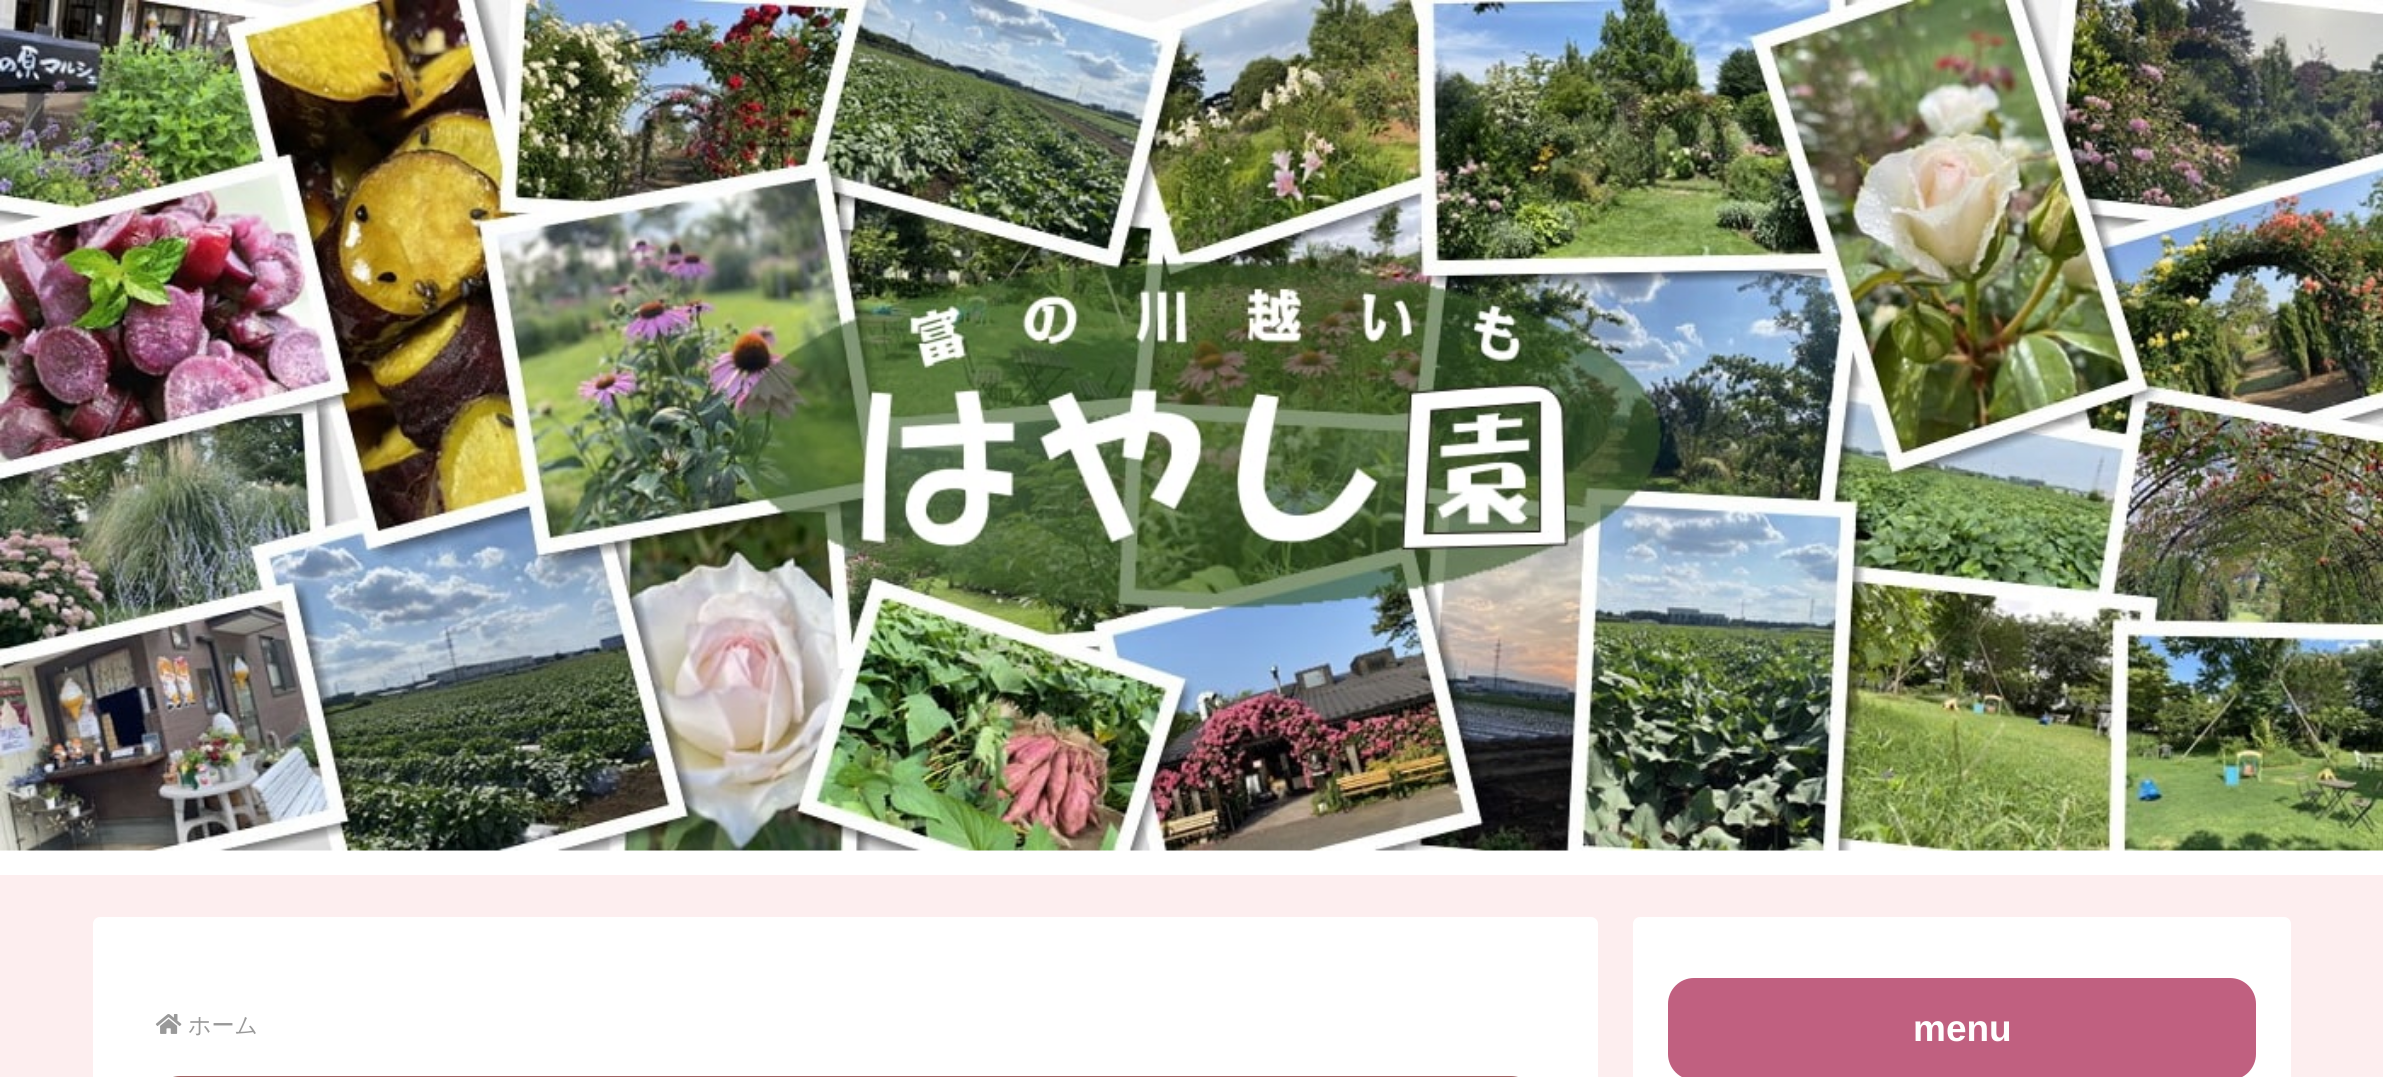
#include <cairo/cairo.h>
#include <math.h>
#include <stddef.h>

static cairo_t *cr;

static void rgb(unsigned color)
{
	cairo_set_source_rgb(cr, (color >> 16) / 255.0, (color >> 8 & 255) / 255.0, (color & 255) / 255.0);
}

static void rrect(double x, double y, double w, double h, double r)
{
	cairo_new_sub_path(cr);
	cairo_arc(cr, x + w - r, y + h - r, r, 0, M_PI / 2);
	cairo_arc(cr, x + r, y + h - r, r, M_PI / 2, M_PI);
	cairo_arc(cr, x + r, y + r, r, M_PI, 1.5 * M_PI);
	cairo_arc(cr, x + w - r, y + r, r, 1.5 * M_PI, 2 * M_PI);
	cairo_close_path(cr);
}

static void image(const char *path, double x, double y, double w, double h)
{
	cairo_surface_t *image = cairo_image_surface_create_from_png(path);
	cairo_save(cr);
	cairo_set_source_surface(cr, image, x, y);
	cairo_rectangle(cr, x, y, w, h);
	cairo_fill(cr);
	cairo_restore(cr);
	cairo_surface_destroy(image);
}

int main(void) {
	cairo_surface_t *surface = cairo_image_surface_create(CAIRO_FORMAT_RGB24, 2383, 1077);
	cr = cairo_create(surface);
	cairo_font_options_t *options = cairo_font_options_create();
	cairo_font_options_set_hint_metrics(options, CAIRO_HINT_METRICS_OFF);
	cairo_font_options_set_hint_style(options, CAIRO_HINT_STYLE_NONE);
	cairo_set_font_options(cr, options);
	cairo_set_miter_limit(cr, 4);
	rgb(0xfdeeef);
	cairo_paint(cr);
	rgb(0xffffff);
	cairo_rectangle(cr, 0, 850, 2383, 25);
	cairo_fill(cr);
	image("img/1.png", 0, 0, 2383, 851);
	rrect(93, 917, 1505, 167, 7);
	cairo_fill(cr);
	image("img/2.png", 155, 1014, 27, 20);
	rgb(0xa06060);
	rrect(154, 1076, 1383, 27, 26);
	cairo_fill(cr);
	rgb(0xffffff);
	rrect(1633, 917, 658, 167, 7);
	cairo_fill(cr);
	rgb(0xc06080);
	rrect(1668, 978, 588, 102, 26);
	cairo_fill(cr);
	cairo_select_font_face(cr, "WenQuanYi Zen Hei Medium", CAIRO_FONT_SLANT_NORMAL, CAIRO_FONT_WEIGHT_NORMAL);
	cairo_set_font_size(cr, 23);
	rgb(0x999999);
	cairo_move_to(cr, 188, 1033);
	cairo_show_text(cr, "ホーム");
	cairo_select_font_face(cr, "Liberation Sans", CAIRO_FONT_SLANT_NORMAL, CAIRO_FONT_WEIGHT_BOLD);
	cairo_set_font_size(cr, 37);
	rgb(0xffffff);
	cairo_move_to(cr, 1913, 1041);
	cairo_show_text(cr, "menu");
	cairo_surface_write_to_png(surface, "page.png");
	cairo_font_options_destroy(options);
	cairo_destroy(cr);
	cairo_surface_destroy(surface);
	return 0;
}
